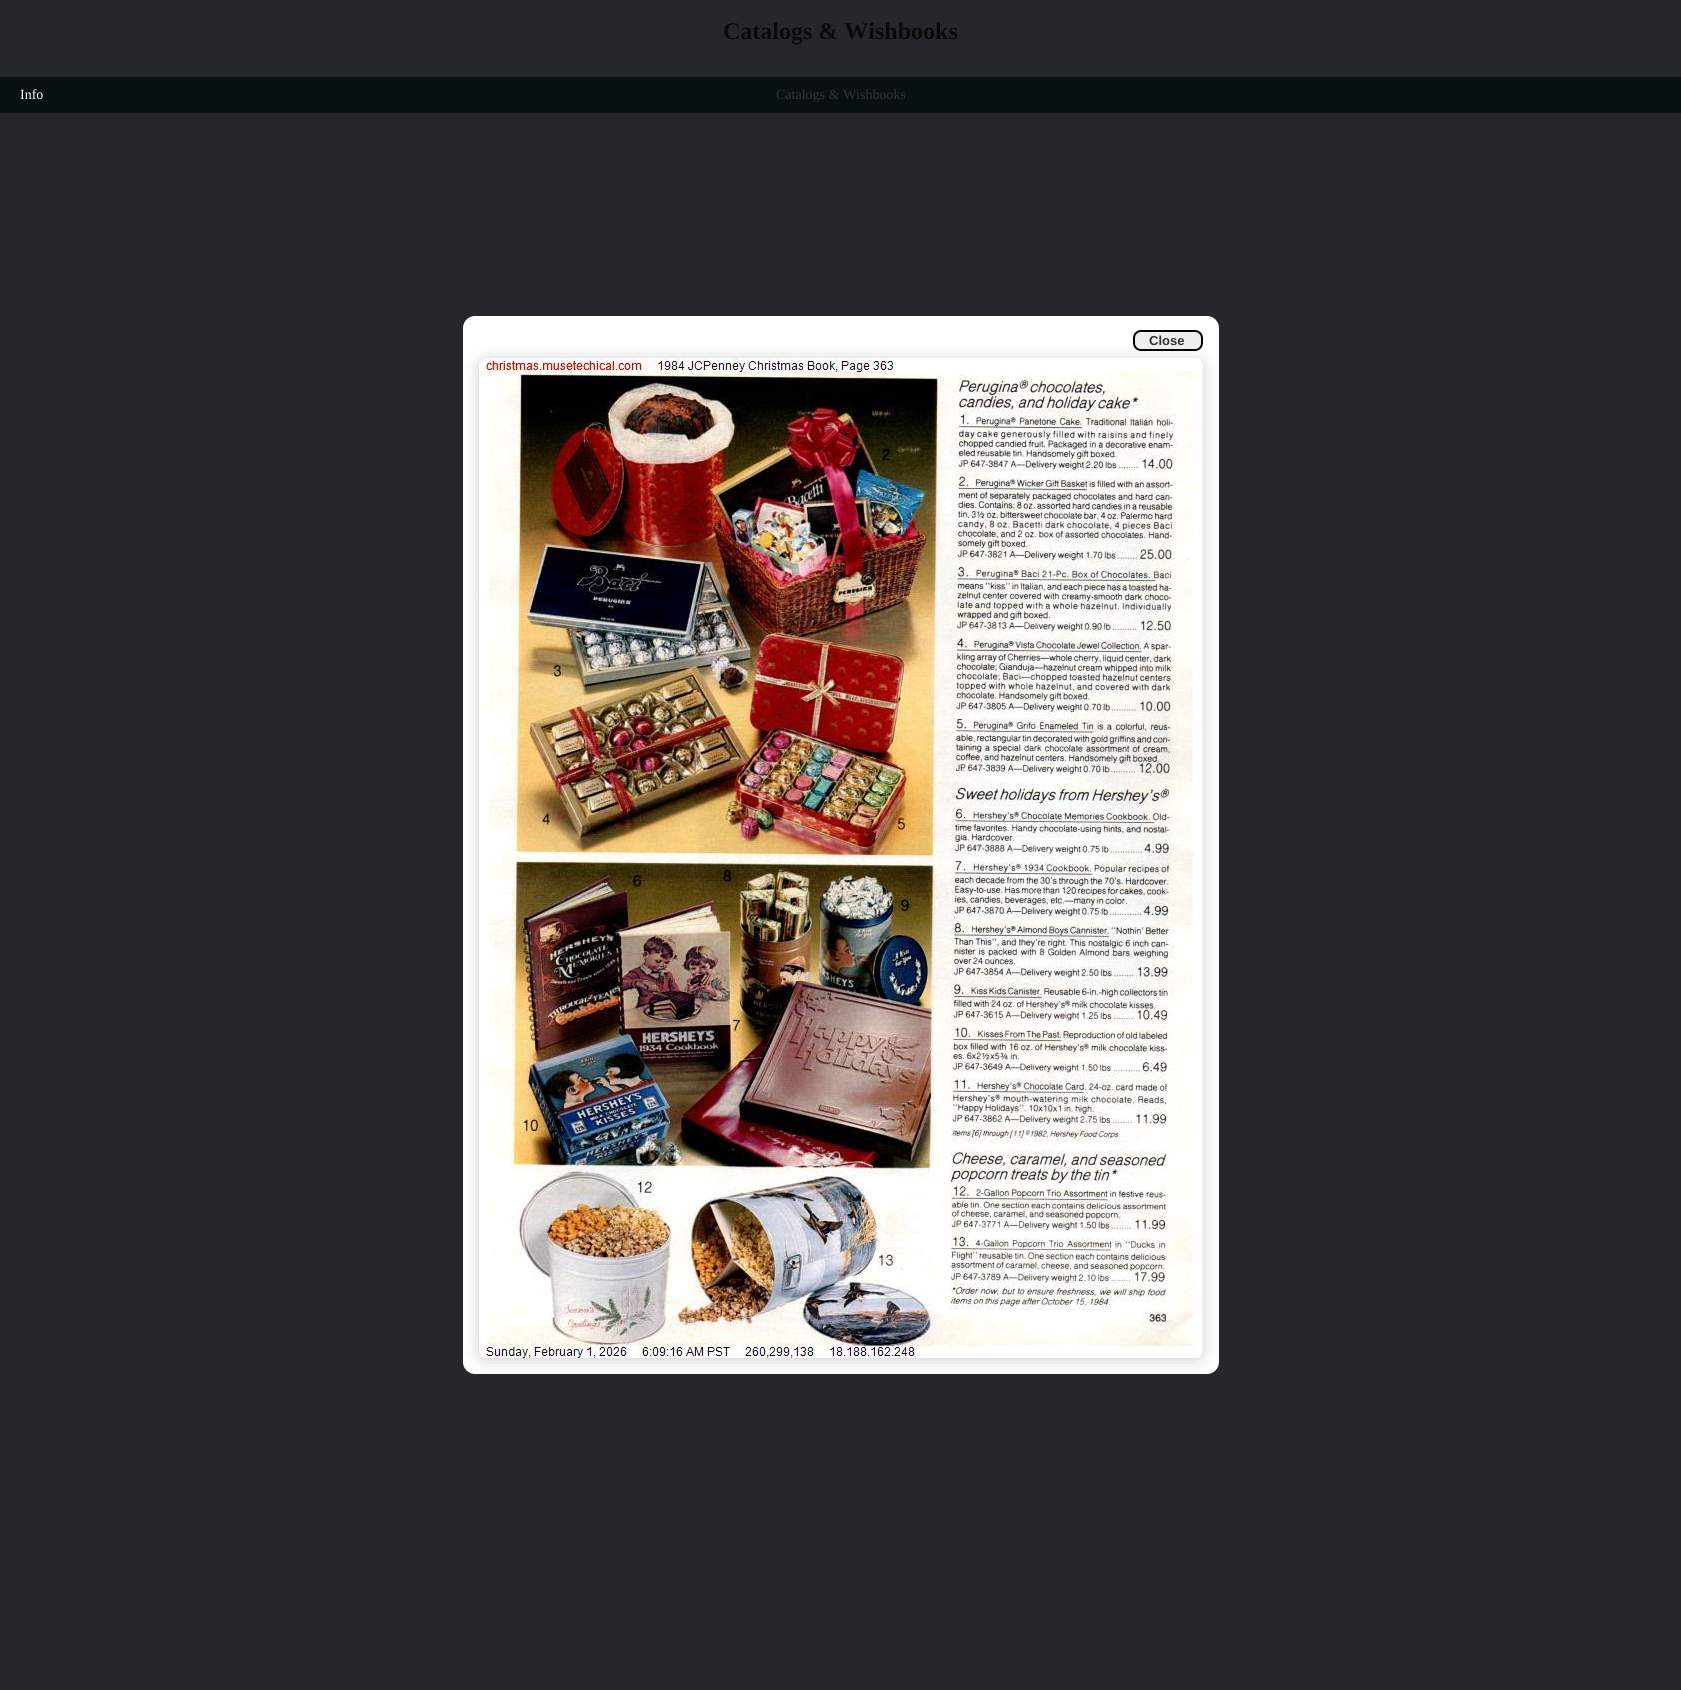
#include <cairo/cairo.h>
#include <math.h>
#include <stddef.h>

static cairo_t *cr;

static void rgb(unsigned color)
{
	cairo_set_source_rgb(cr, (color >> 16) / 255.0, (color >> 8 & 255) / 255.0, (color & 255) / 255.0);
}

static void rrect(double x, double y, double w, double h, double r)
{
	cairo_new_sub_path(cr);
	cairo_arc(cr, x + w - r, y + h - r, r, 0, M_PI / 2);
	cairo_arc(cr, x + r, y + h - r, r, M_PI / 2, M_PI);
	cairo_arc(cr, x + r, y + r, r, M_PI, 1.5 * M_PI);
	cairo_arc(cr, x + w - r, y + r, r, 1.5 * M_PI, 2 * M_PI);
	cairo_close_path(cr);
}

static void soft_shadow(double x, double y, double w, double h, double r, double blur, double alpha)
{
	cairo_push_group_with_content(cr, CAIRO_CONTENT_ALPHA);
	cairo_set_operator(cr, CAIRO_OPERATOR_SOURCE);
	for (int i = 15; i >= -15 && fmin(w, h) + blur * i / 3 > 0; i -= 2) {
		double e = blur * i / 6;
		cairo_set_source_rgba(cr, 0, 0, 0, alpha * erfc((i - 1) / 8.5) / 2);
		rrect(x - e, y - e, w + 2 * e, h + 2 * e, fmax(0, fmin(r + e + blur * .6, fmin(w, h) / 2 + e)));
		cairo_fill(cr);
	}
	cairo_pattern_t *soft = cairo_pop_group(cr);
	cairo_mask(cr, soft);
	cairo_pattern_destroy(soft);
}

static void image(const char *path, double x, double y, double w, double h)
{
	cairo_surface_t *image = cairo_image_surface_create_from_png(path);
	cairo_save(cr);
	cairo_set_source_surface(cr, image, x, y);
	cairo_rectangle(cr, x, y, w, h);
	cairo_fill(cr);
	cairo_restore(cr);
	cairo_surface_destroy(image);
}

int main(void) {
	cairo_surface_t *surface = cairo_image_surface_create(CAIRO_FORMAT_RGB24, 1681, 1690);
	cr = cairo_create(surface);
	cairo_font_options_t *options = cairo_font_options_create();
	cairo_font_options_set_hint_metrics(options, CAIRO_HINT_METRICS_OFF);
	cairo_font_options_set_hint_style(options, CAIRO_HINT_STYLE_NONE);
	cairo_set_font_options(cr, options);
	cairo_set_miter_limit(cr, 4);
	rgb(0x24282d);
	cairo_paint(cr);
	rgb(0x091010);
	cairo_rectangle(cr, 0, 77, 1681, 36);
	cairo_fill(cr);
	rgb(0xffffff);
	rrect(463, 316, 756, 1058, 12);
	cairo_fill(cr);
	rgb(0x000000);
	soft_shadow(479, 360, 724, 1000, 8, 8, 0.2);
	image("img/1.png", 479, 358, 724, 1000);
	rgb(0xeeeeee);
	rrect(1134, 331, 68, 19, 7);
	cairo_fill_preserve(cr);
	rgb(0x000000);
	cairo_stroke(cr);
	cairo_select_font_face(cr, "Liberation Serif", CAIRO_FONT_SLANT_NORMAL, CAIRO_FONT_WEIGHT_NORMAL);
	cairo_set_font_size(cr, 14);
	rgb(0xffffff);
	cairo_move_to(cr, 20, 99);
	cairo_show_text(cr, "Info");
	rgb(0x333333);
	cairo_move_to(cr, 776, 99);
	cairo_show_text(cr, "Catalogs & Wishbooks");
	cairo_select_font_face(cr, "Liberation Serif", CAIRO_FONT_SLANT_NORMAL, CAIRO_FONT_WEIGHT_BOLD);
	cairo_set_font_size(cr, 24);
	rgb(0x0a0a0a);
	cairo_move_to(cr, 723, 39);
	cairo_show_text(cr, "Catalogs & Wishbooks");
	cairo_select_font_face(cr, "Liberation Sans", CAIRO_FONT_SLANT_NORMAL, CAIRO_FONT_WEIGHT_BOLD);
	cairo_set_font_size(cr, 13);
	rgb(0x333333);
	cairo_move_to(cr, 1149, 345);
	cairo_show_text(cr, "Close");
	cairo_surface_write_to_png(surface, "page.png");
	cairo_font_options_destroy(options);
	cairo_destroy(cr);
	cairo_surface_destroy(surface);
	return 0;
}
